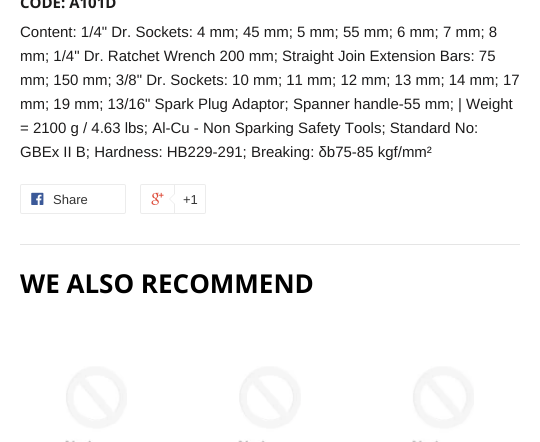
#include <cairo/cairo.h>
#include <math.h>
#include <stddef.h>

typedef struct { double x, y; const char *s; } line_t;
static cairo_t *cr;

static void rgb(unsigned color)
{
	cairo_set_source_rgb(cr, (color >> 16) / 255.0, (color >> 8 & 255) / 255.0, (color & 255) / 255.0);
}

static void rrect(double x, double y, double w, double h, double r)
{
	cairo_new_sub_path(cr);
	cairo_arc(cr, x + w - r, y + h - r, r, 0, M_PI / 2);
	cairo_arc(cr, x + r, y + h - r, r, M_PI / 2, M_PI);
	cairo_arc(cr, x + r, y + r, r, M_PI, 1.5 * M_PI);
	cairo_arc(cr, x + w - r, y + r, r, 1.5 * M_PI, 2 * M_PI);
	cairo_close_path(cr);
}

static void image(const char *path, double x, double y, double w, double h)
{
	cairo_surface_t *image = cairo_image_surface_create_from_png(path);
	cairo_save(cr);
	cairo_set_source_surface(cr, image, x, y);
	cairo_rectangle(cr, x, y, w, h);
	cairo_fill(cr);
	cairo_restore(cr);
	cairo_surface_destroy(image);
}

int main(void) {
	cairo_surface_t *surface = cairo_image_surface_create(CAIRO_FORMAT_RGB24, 540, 442);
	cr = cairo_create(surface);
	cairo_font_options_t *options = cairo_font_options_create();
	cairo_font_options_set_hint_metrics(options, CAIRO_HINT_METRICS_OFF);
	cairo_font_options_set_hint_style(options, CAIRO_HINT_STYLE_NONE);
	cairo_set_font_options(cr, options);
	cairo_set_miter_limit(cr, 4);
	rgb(0xffffff);
	cairo_paint(cr);
	rrect(20.5, 184.5, 105, 29, 1.5);
	rgb(0xececec);
	cairo_set_line_width(cr, 1);
	cairo_stroke(cr);
	image("img/1.png", 31, 192, 13, 13);
	rrect(140.5, 184.5, 64, 29, 1.5);
	cairo_stroke(cr);
	image("img/2.png", 151, 192, 13, 13);
	rgb(0xffffff);
	cairo_new_path(cr);
	cairo_move_to(cr, 174.5, 184.5);
	cairo_line_to(cr, 204, 184.5);
	cairo_curve_to(cr, 205, 184.5, 205.5, 185, 205.5, 186);
	cairo_line_to(cr, 205.5, 212);
	cairo_curve_to(cr, 205.5, 213, 205, 213.5, 204, 213.5);
	cairo_line_to(cr, 174.5, 213.5);
	cairo_close_path(cr);
	cairo_fill_preserve(cr);
	rgb(0xececec);
	cairo_stroke(cr);
	cairo_new_path(cr);
	cairo_move_to(cr, 175, 193);
	cairo_line_to(cr, 175, 205);
	cairo_line_to(cr, 169, 199);
	cairo_close_path(cr);
	cairo_fill(cr);
	rgb(0xffffff);
	cairo_new_path(cr);
	cairo_move_to(cr, 176, 193);
	cairo_line_to(cr, 176, 205);
	cairo_line_to(cr, 170, 199);
	cairo_close_path(cr);
	cairo_fill(cr);
	rgb(0xe5e5e5);
	cairo_rectangle(cr, 20, 244, 500, 1);
	cairo_fill(cr);
	image("img/3.png", 65, 366, 62, 76);
	image("img/4.png", 238, 366, 63, 76);
	image("img/5.png", 412, 366, 62, 76);
	cairo_select_font_face(cr, "Open Sans", CAIRO_FONT_SLANT_NORMAL, CAIRO_FONT_WEIGHT_BOLD);
	cairo_set_font_size(cr, 15);
	rgb(0x1d1c1c);
	cairo_move_to(cr, 20, 8);
	cairo_show_text(cr, "CODE: A101D");
	cairo_select_font_face(cr, "Liberation Sans", CAIRO_FONT_SLANT_NORMAL, CAIRO_FONT_WEIGHT_NORMAL);
	{
		static const line_t items[] = {
			{20, 37, "Content: 1/4\" Dr. Sockets: 4 mm; 45 mm; 5 mm; 55 mm; 6 mm; 7 mm; 8"},
			{20, 61, "mm; 1/4\" Dr. Ratchet Wrench 200 mm; Straight Join Extension Bars: 75"},
			{20, 85, "mm; 150 mm; 3/8\" Dr. Sockets: 10 mm; 11 mm; 12 mm; 13 mm; 14 mm; 17"},
			{20, 109, "mm; 19 mm; 13/16\" Spark Plug Adaptor; Spanner handle-55 mm; | Weight"},
			{20, 133, "= 2100 g / 4.63 lbs; Al-Cu - Non Sparking Safety Tools; Standard No:"},
			{20, 157, "GBEx II B; Hardness: HB229-291; Breaking: δb75-85 kgf/mm²"},
		};
		for (size_t i = 0; i < sizeof items / sizeof *items; i++) {
			cairo_move_to(cr, items[i].x, items[i].y);
			cairo_show_text(cr, items[i].s);
		}
	}
	cairo_set_font_size(cr, 13);
	rgb(0x333333);
	cairo_move_to(cr, 53, 204);
	cairo_show_text(cr, "Share");
	cairo_move_to(cr, 183, 204);
	cairo_show_text(cr, "+1");
	cairo_select_font_face(cr, "Open Sans", CAIRO_FONT_SLANT_NORMAL, CAIRO_FONT_WEIGHT_BOLD);
	cairo_set_font_size(cr, 26);
	rgb(0x000000);
	cairo_move_to(cr, 20, 293);
	cairo_show_text(cr, "WE ALSO RECOMMEND");
	cairo_surface_write_to_png(surface, "page.png");
	cairo_font_options_destroy(options);
	cairo_destroy(cr);
	cairo_surface_destroy(surface);
	return 0;
}
